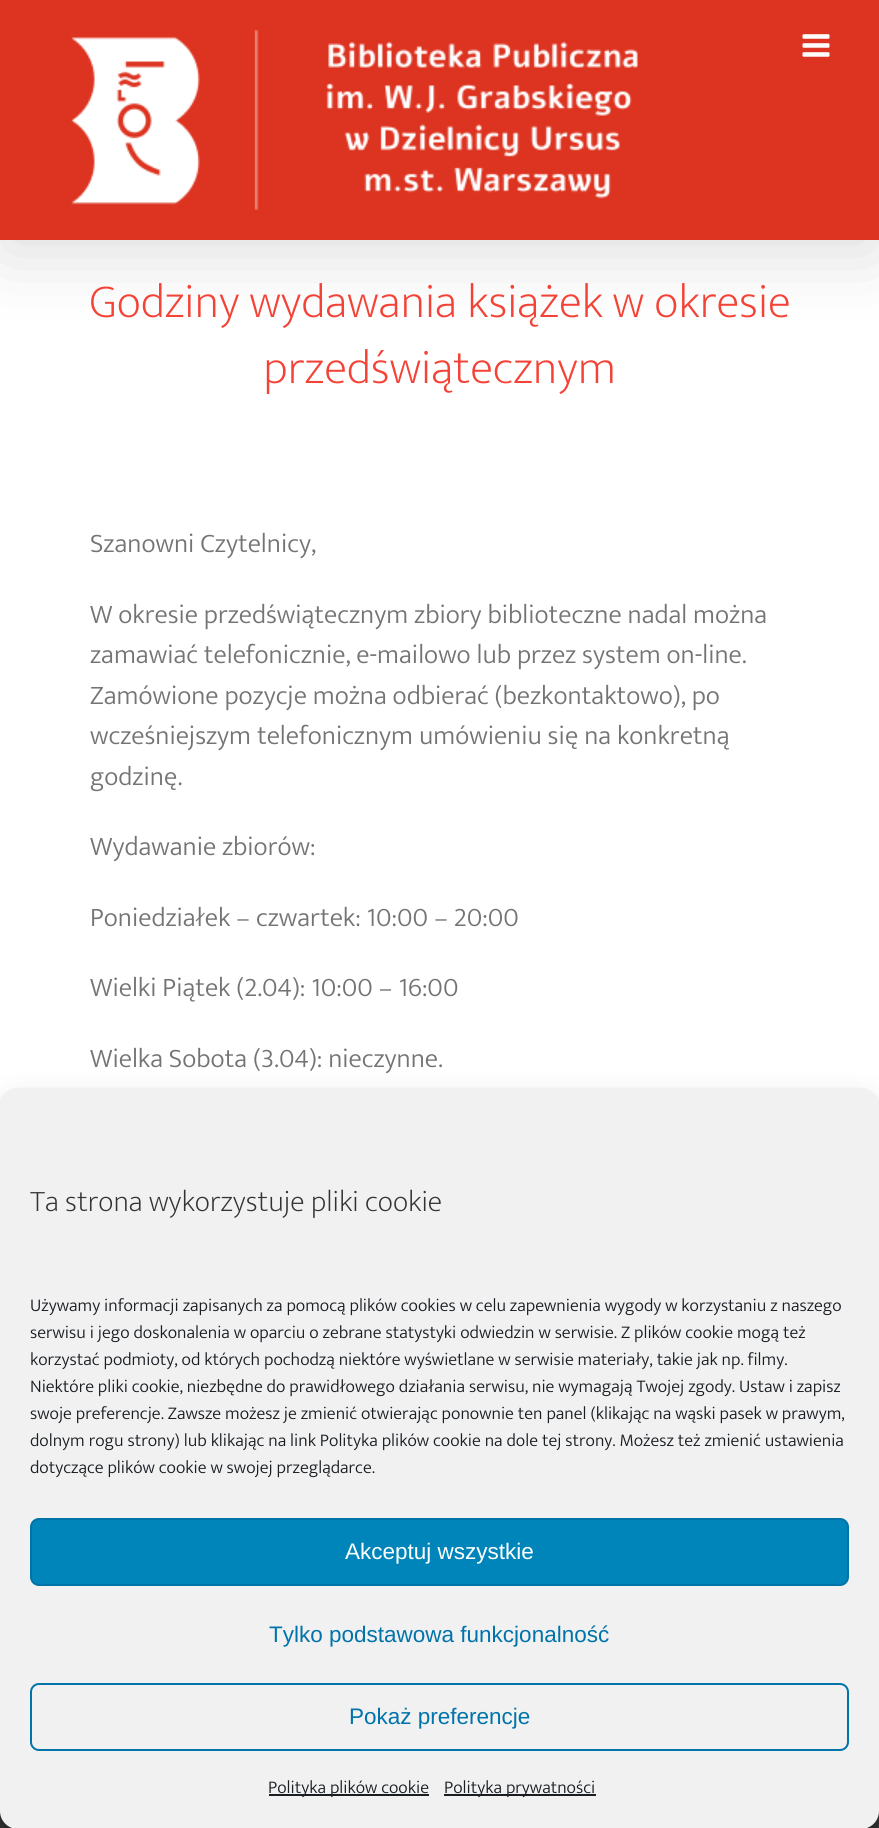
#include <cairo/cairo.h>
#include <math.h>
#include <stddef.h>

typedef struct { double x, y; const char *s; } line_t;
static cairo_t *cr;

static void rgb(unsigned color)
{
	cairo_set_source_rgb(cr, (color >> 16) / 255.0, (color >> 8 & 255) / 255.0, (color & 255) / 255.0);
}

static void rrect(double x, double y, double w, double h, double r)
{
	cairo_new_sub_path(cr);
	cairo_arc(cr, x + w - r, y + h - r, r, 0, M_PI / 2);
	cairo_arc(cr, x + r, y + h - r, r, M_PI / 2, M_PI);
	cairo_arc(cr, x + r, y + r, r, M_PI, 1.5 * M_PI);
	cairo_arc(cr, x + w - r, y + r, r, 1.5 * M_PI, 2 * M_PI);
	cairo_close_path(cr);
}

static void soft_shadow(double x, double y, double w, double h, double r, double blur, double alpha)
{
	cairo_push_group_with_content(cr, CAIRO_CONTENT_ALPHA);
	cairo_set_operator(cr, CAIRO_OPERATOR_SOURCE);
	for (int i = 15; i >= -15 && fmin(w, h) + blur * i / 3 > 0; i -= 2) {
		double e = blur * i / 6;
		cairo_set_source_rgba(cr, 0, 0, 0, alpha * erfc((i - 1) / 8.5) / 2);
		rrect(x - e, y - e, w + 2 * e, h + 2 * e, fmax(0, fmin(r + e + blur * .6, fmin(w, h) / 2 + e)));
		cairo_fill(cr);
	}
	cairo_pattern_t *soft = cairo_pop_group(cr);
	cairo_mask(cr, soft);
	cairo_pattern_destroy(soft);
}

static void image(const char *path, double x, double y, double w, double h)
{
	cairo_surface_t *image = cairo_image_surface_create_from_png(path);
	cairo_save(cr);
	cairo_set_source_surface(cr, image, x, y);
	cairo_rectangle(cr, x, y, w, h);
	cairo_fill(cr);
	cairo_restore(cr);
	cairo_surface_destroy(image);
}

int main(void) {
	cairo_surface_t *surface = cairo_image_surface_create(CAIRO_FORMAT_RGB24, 879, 1828);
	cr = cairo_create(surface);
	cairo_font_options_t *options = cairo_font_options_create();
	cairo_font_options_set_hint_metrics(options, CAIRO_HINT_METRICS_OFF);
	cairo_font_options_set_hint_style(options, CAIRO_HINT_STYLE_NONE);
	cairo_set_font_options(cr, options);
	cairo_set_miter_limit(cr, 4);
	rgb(0xffffff);
	cairo_paint(cr);
	rgb(0x000000);
	soft_shadow(3, 18, 873, 234, 0, 37.5, 0.14);
	rgb(0xdc3421);
	cairo_rectangle(cr, 0, 0, 879, 240);
	cairo_fill(cr);
	image("img/1.png", 71, 30, 567, 180);
	image("img/2.png", 802, 34, 28, 23);
	rgb(0x363839);
	cairo_rectangle(cr, 0, 1811, 879, 17);
	cairo_fill(cr);
	rgb(0x000000);
	soft_shadow(0, 1097, 879, 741, 18, 4.5, 0.23);
	soft_shadow(0, 1103, 879, 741, 18, 15, 0.19);
	rgb(0xf1f1f1);
	rrect(0, 1088, 879, 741, 18);
	cairo_fill(cr);
	rgb(0x0085ba);
	rrect(31, 1519, 817, 66, 8);
	cairo_fill_preserve(cr);
	rgb(0x0073aa);
	cairo_stroke(cr);
	rrect(31, 1684, 817, 66, 8);
	cairo_stroke(cr);
	rgb(0x191e23);
	cairo_rectangle(cr, 269, 1794, 160, 2);
	cairo_fill(cr);
	cairo_rectangle(cr, 444, 1794, 152, 2);
	cairo_fill(cr);
	cairo_select_font_face(cr, "Mukta ExtraLight", CAIRO_FONT_SLANT_NORMAL, CAIRO_FONT_WEIGHT_NORMAL);
	cairo_set_font_size(cr, 47.75);
	rgb(0xf44336);
	cairo_move_to(cr, 89, 317);
	cairo_show_text(cr, "Godziny wydawania książek w okresie");
	cairo_move_to(cr, 263, 383);
	cairo_show_text(cr, "przedświątecznym");
	cairo_select_font_face(cr, "Mukta Light", CAIRO_FONT_SLANT_NORMAL, CAIRO_FONT_WEIGHT_NORMAL);
	cairo_set_font_size(cr, 27);
	rgb(0x747474);
	{
		static const line_t items[] = {
			{90, 552, "Szanowni Czytelnicy,"},
			{90, 623, "W okresie przedświątecznym zbiory biblioteczne nadal można"},
			{90, 663, "zamawiać telefonicznie, e-mailowo lub przez system on-line."},
			{90, 704, "Zamówione pozycje można odbierać (bezkontaktowo), po"},
			{90, 744, "wcześniejszym telefonicznym umówieniu się na konkretną"},
			{90, 785, "godzinę."},
			{90, 855, "Wydawanie zbiorów:"},
			{90, 926, "Poniedziałek – czwartek: 10:00 – 20:00"},
			{90, 996, "Wielki Piątek (2.04): 10:00 – 16:00"},
			{90, 1067, "Wielka Sobota (3.04): nieczynne."},
		};
		for (size_t i = 0; i < sizeof items / sizeof *items; i++) {
			cairo_move_to(cr, items[i].x, items[i].y);
			cairo_show_text(cr, items[i].s);
		}
	}
	cairo_select_font_face(cr, "Mukta ExtraLight", CAIRO_FONT_SLANT_NORMAL, CAIRO_FONT_WEIGHT_NORMAL);
	cairo_set_font_size(cr, 30);
	rgb(0x333333);
	cairo_move_to(cr, 30, 1211);
	cairo_show_text(cr, "Ta strona wykorzystuje pliki cookie");
	cairo_select_font_face(cr, "Mukta Light", CAIRO_FONT_SLANT_NORMAL, CAIRO_FONT_WEIGHT_NORMAL);
	cairo_set_font_size(cr, 18);
	rgb(0x191e23);
	{
		static const line_t items[] = {
			{30, 1311, "Używamy informacji zapisanych za pomocą plików cookies w celu zapewnienia wygody w korzystaniu z naszego"},
			{30, 1338, "serwisu i jego doskonalenia w oparciu o zebrane statystyki odwiedzin w serwisie. Z plików cookie mogą też"},
			{30, 1365, "korzystać podmioty, od których pochodzą niektóre wyświetlane w serwisie materiały, takie jak np. filmy."},
			{30, 1392, "Niektóre pliki cookie, niezbędne do prawidłowego działania serwisu, nie wymagają Twojej zgody. Ustaw i zapisz"},
			{30, 1419, "swoje preferencje. Zawsze możesz je zmienić otwierając ponownie ten panel (klikając na wąski pasek w prawym,"},
			{30, 1446, "dolnym rogu strony) lub klikając na link Polityka plików cookie na dole tej strony. Możesz też zmienić ustawienia"},
			{30, 1473, "dotyczące plików cookie w swojej przeglądarce."},
		};
		for (size_t i = 0; i < sizeof items / sizeof *items; i++) {
			cairo_move_to(cr, items[i].x, items[i].y);
			cairo_show_text(cr, items[i].s);
		}
	}
	cairo_select_font_face(cr, "Liberation Sans", CAIRO_FONT_SLANT_NORMAL, CAIRO_FONT_WEIGHT_NORMAL);
	cairo_set_font_size(cr, 22.5);
	rgb(0xffffff);
	cairo_move_to(cr, 345, 1559);
	cairo_show_text(cr, "Akceptuj wszystkie");
	rgb(0x0073aa);
	cairo_move_to(cr, 269, 1642);
	cairo_show_text(cr, "Tylko podstawowa funkcjonalność");
	cairo_move_to(cr, 349, 1724);
	cairo_show_text(cr, "Pokaż preferencje");
	cairo_select_font_face(cr, "Mukta Light", CAIRO_FONT_SLANT_NORMAL, CAIRO_FONT_WEIGHT_NORMAL);
	cairo_set_font_size(cr, 18);
	rgb(0x191e23);
	cairo_move_to(cr, 268, 1793);
	cairo_show_text(cr, "Polityka plików cookie");
	cairo_move_to(cr, 444, 1793);
	cairo_show_text(cr, "Polityka prywatności");
	cairo_surface_write_to_png(surface, "page.png");
	cairo_font_options_destroy(options);
	cairo_destroy(cr);
	cairo_surface_destroy(surface);
	return 0;
}
